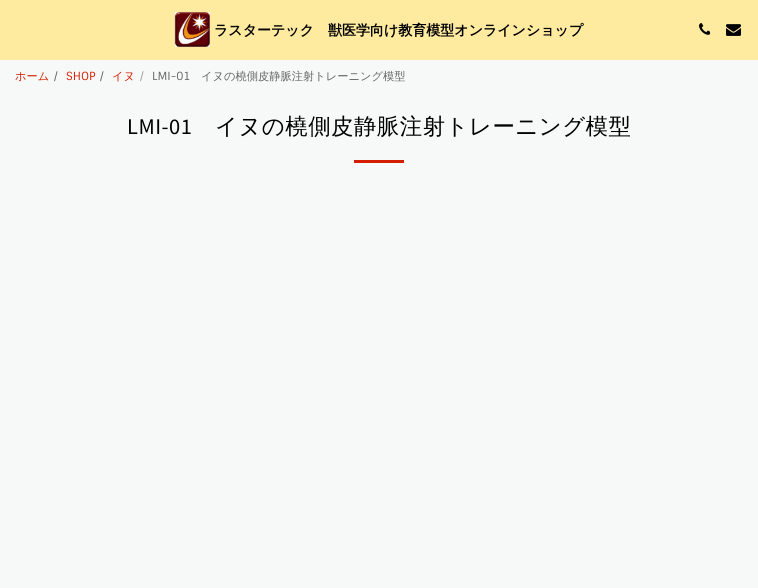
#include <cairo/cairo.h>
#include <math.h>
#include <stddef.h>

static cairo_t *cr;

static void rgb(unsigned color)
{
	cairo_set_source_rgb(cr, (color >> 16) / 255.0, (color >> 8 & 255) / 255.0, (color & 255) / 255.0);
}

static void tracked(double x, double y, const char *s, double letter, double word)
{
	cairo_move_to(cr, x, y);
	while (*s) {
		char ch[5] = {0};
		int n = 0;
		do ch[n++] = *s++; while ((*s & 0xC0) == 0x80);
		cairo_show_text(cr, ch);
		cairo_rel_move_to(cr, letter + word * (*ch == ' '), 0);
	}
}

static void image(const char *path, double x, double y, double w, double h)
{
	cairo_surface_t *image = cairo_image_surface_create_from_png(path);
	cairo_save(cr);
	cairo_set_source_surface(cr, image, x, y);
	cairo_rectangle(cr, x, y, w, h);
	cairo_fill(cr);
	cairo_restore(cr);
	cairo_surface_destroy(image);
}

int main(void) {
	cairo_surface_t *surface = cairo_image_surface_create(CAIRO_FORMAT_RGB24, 758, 588);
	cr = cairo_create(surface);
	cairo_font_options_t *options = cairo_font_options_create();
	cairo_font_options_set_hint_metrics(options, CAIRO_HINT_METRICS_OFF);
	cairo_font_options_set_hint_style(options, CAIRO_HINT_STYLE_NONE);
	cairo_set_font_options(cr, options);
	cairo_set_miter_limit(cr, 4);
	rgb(0xf7f9f8);
	cairo_paint(cr);
	rgb(0xfeeba0);
	cairo_rectangle(cr, 0, 0, 758, 60);
	cairo_fill(cr);
	image("img/1.png", 174, 12, 36, 35);
	image("img/2.png", 699, 23, 11, 12);
	image("img/3.png", 726, 24, 15, 12);
	rgb(0xd41e00);
	cairo_rectangle(cr, 354, 160, 50, 3);
	cairo_fill(cr);
	cairo_select_font_face(cr, "WenQuanYi Zen Hei", CAIRO_FONT_SLANT_NORMAL, CAIRO_FONT_WEIGHT_BOLD);
	cairo_set_font_size(cr, 14);
	rgb(0x000000);
	cairo_move_to(cr, 214, 35);
	cairo_show_text(cr, "ラスターテック　獣医学向け教育模型オンラインショップ");
	cairo_select_font_face(cr, "WenQuanYi Zen Hei Medium", CAIRO_FONT_SLANT_NORMAL, CAIRO_FONT_WEIGHT_NORMAL);
	cairo_set_font_size(cr, 11.25);
	rgb(0xd41e00);
	cairo_move_to(cr, 15, 80);
	cairo_show_text(cr, "ホーム");
	cairo_select_font_face(cr, "Sintony", CAIRO_FONT_SLANT_NORMAL, CAIRO_FONT_WEIGHT_NORMAL);
	rgb(0x636463);
	cairo_move_to(cr, 54, 80);
	cairo_show_text(cr, "/");
	rgb(0xd41e00);
	cairo_move_to(cr, 66, 80);
	cairo_show_text(cr, "SHOP");
	rgb(0x636463);
	cairo_move_to(cr, 100, 80);
	cairo_show_text(cr, "/");
	cairo_select_font_face(cr, "WenQuanYi Zen Hei Medium", CAIRO_FONT_SLANT_NORMAL, CAIRO_FONT_WEIGHT_NORMAL);
	rgb(0xd41e00);
	cairo_move_to(cr, 112, 80);
	cairo_show_text(cr, "イヌ");
	cairo_select_font_face(cr, "Sintony", CAIRO_FONT_SLANT_NORMAL, CAIRO_FONT_WEIGHT_NORMAL);
	rgb(0x9e9f9f);
	cairo_move_to(cr, 140, 80);
	cairo_show_text(cr, "/");
	rgb(0x636463);
	cairo_move_to(cr, 152, 80);
	cairo_show_text(cr, "LMI-01");
	cairo_select_font_face(cr, "WenQuanYi Zen Hei Medium", CAIRO_FONT_SLANT_NORMAL, CAIRO_FONT_WEIGHT_NORMAL);
	cairo_move_to(cr, 201, 80);
	cairo_show_text(cr, "イヌの橈側皮静脈注射トレーニング模型");
	cairo_select_font_face(cr, "Source Sans Pro", CAIRO_FONT_SLANT_NORMAL, CAIRO_FONT_WEIGHT_NORMAL);
	cairo_set_font_size(cr, 22.4);
	rgb(0x000000);
	tracked(127, 134, "LMI-01", 0.5, 0);
	cairo_select_font_face(cr, "WenQuanYi Zen Hei Medium", CAIRO_FONT_SLANT_NORMAL, CAIRO_FONT_WEIGHT_NORMAL);
	tracked(215, 134, "イヌの橈側皮静脈注射トレーニング模型", 0.5, 0);
	cairo_surface_write_to_png(surface, "page.png");
	cairo_font_options_destroy(options);
	cairo_destroy(cr);
	cairo_surface_destroy(surface);
	return 0;
}
